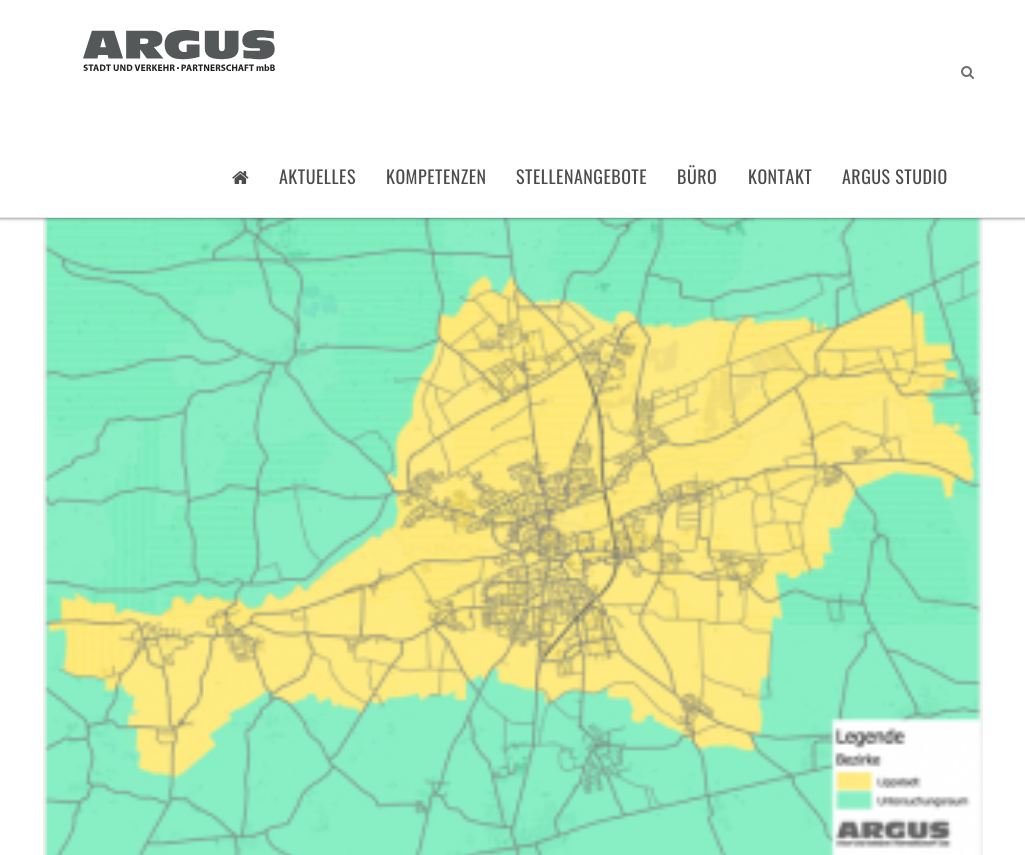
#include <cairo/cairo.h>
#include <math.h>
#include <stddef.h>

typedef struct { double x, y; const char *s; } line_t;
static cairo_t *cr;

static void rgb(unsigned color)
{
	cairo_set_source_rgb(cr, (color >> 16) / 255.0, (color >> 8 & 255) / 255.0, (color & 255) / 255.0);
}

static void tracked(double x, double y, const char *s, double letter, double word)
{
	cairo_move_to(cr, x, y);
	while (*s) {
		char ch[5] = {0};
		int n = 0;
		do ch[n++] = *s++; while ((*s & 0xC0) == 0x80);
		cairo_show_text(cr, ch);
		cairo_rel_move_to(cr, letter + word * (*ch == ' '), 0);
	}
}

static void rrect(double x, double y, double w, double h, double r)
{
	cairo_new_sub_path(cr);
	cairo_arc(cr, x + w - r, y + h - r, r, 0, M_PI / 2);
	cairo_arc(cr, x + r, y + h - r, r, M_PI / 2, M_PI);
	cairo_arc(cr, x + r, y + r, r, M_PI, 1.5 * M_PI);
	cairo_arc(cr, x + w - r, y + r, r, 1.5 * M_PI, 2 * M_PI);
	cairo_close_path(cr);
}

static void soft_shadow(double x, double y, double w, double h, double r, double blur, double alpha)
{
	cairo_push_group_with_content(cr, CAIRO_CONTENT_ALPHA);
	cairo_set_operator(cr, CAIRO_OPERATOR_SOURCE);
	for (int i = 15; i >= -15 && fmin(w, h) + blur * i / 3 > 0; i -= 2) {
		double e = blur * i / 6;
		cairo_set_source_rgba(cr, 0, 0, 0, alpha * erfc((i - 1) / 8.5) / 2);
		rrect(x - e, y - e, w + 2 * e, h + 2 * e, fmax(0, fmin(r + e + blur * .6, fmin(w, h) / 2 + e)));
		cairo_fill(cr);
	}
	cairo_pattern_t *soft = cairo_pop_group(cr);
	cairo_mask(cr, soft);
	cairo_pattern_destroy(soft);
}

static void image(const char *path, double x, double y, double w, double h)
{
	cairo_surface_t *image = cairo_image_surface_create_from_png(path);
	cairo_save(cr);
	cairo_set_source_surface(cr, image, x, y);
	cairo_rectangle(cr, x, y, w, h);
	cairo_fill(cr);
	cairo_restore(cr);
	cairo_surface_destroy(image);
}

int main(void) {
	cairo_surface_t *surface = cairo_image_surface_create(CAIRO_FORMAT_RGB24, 1025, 855);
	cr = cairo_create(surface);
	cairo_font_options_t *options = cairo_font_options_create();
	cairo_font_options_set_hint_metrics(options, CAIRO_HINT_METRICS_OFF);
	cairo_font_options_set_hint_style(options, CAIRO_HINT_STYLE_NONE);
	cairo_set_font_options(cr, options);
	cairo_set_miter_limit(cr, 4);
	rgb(0xffffff);
	cairo_paint(cr);
	image("img/4.png", 43, 218, 940, 637);
	rgb(0x1c2527);
	soft_shadow(0, 0, 1025, 218, 0, 2, 0.7);
	rgb(0xffffff);
	cairo_rectangle(cr, 0, 0, 1025, 217);
	cairo_fill(cr);
	rgb(0xe7e7e7);
	cairo_rectangle(cr, 0, 217, 1025, 1);
	cairo_fill(cr);
	image("img/1.png", 83, 30, 192, 41);
	image("img/2.png", 961, 66, 13, 13);
	image("img/3.png", 232, 171, 17, 13);
	cairo_select_font_face(cr, "Oswald", CAIRO_FONT_SLANT_NORMAL, CAIRO_FONT_WEIGHT_NORMAL);
	cairo_set_font_size(cr, 18);
	rgb(0x4c4c4c);
	{
		static const line_t items[] = {
			{279, 184, "AKTUELLES"},
			{386, 184, "KOMPETENZEN"},
			{516, 184, "STELLENANGEBOTE"},
			{677, 184, "BÜRO"},
			{748, 184, "KONTAKT"},
			{842, 184, "ARGUS STUDIO"},
		};
		for (size_t i = 0; i < sizeof items / sizeof *items; i++) {
			tracked(items[i].x, items[i].y, items[i].s, 0.5, 0);
		}
	}
	cairo_surface_write_to_png(surface, "page.png");
	cairo_font_options_destroy(options);
	cairo_destroy(cr);
	cairo_surface_destroy(surface);
	return 0;
}
